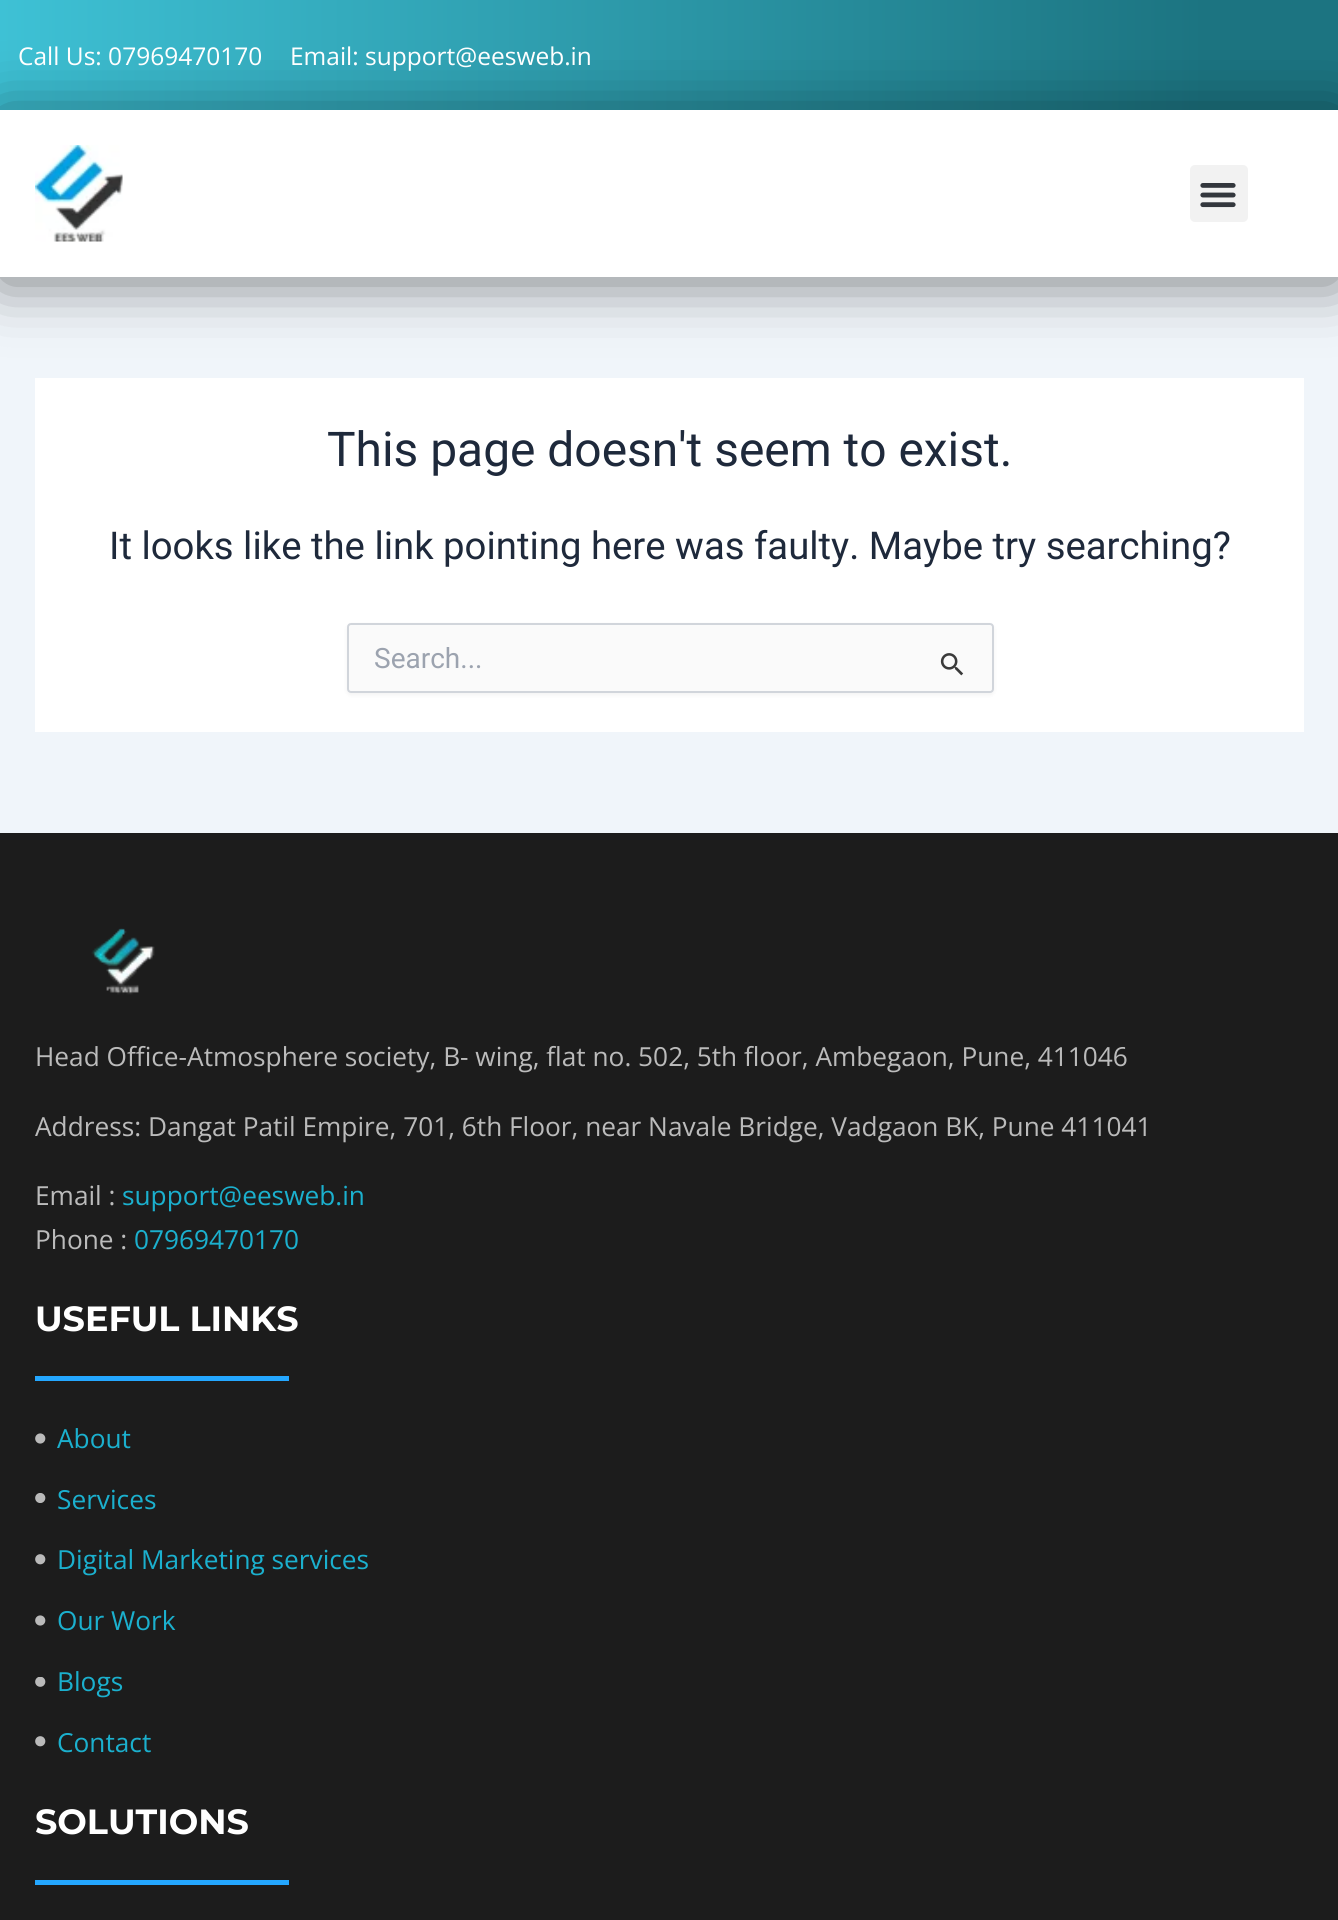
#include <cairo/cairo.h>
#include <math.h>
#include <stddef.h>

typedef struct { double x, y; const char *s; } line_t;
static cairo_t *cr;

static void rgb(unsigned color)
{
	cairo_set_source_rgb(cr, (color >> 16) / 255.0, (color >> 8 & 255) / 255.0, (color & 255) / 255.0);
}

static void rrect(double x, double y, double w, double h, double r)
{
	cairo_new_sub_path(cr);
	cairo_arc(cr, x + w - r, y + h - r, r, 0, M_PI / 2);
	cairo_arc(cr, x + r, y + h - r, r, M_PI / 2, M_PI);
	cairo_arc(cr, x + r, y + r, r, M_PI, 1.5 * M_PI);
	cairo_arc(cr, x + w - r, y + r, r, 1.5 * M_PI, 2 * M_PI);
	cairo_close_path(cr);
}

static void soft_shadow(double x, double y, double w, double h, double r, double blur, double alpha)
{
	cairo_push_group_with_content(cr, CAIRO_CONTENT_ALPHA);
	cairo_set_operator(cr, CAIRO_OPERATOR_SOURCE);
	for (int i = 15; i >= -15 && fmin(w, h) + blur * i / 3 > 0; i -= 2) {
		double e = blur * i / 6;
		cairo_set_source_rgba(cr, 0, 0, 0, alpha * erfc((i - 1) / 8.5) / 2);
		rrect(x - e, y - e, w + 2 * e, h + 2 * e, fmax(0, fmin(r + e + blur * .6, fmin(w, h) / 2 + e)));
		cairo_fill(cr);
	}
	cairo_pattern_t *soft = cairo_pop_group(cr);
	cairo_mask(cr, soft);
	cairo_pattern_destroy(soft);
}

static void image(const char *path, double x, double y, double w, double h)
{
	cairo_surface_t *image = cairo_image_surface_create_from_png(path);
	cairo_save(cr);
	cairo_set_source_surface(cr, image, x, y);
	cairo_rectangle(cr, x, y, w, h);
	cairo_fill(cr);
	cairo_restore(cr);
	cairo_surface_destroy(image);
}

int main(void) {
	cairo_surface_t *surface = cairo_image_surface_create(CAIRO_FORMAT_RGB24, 1338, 1920);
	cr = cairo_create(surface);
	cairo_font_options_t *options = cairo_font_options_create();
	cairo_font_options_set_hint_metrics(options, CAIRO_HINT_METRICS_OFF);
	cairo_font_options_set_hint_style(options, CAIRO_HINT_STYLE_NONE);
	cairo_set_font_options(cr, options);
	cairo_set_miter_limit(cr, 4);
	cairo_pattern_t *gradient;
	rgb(0xf0f5fa);
	cairo_paint(cr);
	gradient = cairo_pattern_create_linear(0, 55, 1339, 55);
	cairo_pattern_add_color_stop_rgba(gradient, 0, 0.243, 0.757, 0.835, 1);
	cairo_pattern_add_color_stop_rgba(gradient, 0.9, 0.11, 0.455, 0.506, 1);
	cairo_set_source(cr, gradient);
	cairo_pattern_destroy(gradient);
	cairo_rectangle(cr, 0, 0, 1338, 110);
	cairo_fill(cr);
	rgb(0x000000);
	soft_shadow(0, 116, 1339, 166, 0, 30.5, 0.5);
	rgb(0xffffff);
	cairo_rectangle(cr, 0, 110, 1338, 167);
	cairo_fill(cr);
	image("img/1.png", 35, 145, 88, 97);
	rgb(0xf2f2f2);
	rrect(1190, 165, 58, 57, 5);
	cairo_fill(cr);
	image("img/2.png", 1200, 183, 36, 25);
	rgb(0xffffff);
	cairo_rectangle(cr, 35, 378, 1269, 354);
	cairo_fill(cr);
	rgb(0x000000);
	soft_shadow(347, 625, 647, 70, 4, 2, 0.05);
	rgb(0xfafafa);
	rrect(348, 624, 645, 68, 3);
	cairo_fill_preserve(cr);
	rgb(0xd1d5db);
	cairo_stroke(cr);
	image("img/3.png", 940, 653, 24, 23);
	rgb(0x1c1c1c);
	cairo_rectangle(cr, 0, 833, 1338, 1087);
	cairo_fill(cr);
	image("img/4.png", 91, 928, 64, 67);
	rgb(0x24a7ff);
	cairo_rectangle(cr, 35, 1376, 254, 5);
	cairo_fill(cr);
	image("img/5.png", 35, 1433, 11, 11);
	image("img/6.png", 35, 1493, 11, 10);
	image("img/7.png", 35, 1554, 11, 11);
	image("img/5.png", 35, 1615, 11, 11);
	image("img/8.png", 35, 1677, 11, 10);
	image("img/7.png", 35, 1736, 11, 11);
	cairo_rectangle(cr, 35, 1880, 254, 5);
	cairo_fill(cr);
	cairo_select_font_face(cr, "Open Sans", CAIRO_FONT_SLANT_NORMAL, CAIRO_FONT_WEIGHT_NORMAL);
	cairo_set_font_size(cr, 24.5);
	rgb(0xffffff);
	cairo_move_to(cr, 18, 65);
	cairo_show_text(cr, "Call Us: 07969470170");
	cairo_move_to(cr, 290, 65);
	cairo_show_text(cr, "Email: support@eesweb.in");
	cairo_select_font_face(cr, "Roboto", CAIRO_FONT_SLANT_NORMAL, CAIRO_FONT_WEIGHT_NORMAL);
	cairo_set_font_size(cr, 47.9);
	rgb(0x1e293b);
	cairo_move_to(cr, 327, 466);
	cairo_show_text(cr, "This page doesn't seem to exist.");
	cairo_set_font_size(cr, 38.3);
	cairo_move_to(cr, 109, 559);
	cairo_show_text(cr, "It looks like the link pointing here was faulty. Maybe try searching?");
	cairo_set_font_size(cr, 28);
	rgb(0x9ca3af);
	cairo_move_to(cr, 374, 668);
	cairo_show_text(cr, "Search...");
	cairo_select_font_face(cr, "Open Sans", CAIRO_FONT_SLANT_NORMAL, CAIRO_FONT_WEIGHT_NORMAL);
	cairo_set_font_size(cr, 26.25);
	rgb(0xbbbbbb);
	{
		static const line_t items[] = {
			{35, 1066, "Head Office-Atmosphere society, B- wing, flat no. 502, 5th floor, Ambegaon, Pune, 411046"},
			{35, 1136, "Address: Dangat Patil Empire, 701, 6th Floor, near Navale Bridge, Vadgaon BK, Pune 411041"},
			{35, 1205, "Email :"},
		};
		for (size_t i = 0; i < sizeof items / sizeof *items; i++) {
			cairo_move_to(cr, items[i].x, items[i].y);
			cairo_show_text(cr, items[i].s);
		}
	}
	rgb(0x1bb0ce);
	cairo_move_to(cr, 122, 1205);
	cairo_show_text(cr, "support@eesweb.in");
	rgb(0xbbbbbb);
	cairo_move_to(cr, 35, 1249);
	cairo_show_text(cr, "Phone :");
	rgb(0x1bb0ce);
	cairo_move_to(cr, 134, 1249);
	cairo_show_text(cr, "07969470170");
	cairo_select_font_face(cr, "Montserrat", CAIRO_FONT_SLANT_NORMAL, CAIRO_FONT_WEIGHT_BOLD);
	cairo_set_font_size(cr, 35);
	rgb(0xffffff);
	cairo_move_to(cr, 35, 1331);
	cairo_show_text(cr, "USEFUL LINKS");
	cairo_select_font_face(cr, "Open Sans", CAIRO_FONT_SLANT_NORMAL, CAIRO_FONT_WEIGHT_NORMAL);
	cairo_set_font_size(cr, 26.25);
	rgb(0x1bb0ce);
	{
		static const line_t items[] = {
			{57, 1448, "About"},
			{57, 1509, "Services"},
			{57, 1569, "Digital Marketing services"},
			{57, 1630, "Our Work"},
			{57, 1691, "Blogs"},
			{57, 1752, "Contact"},
		};
		for (size_t i = 0; i < sizeof items / sizeof *items; i++) {
			cairo_move_to(cr, items[i].x, items[i].y);
			cairo_show_text(cr, items[i].s);
		}
	}
	cairo_select_font_face(cr, "Montserrat", CAIRO_FONT_SLANT_NORMAL, CAIRO_FONT_WEIGHT_BOLD);
	cairo_set_font_size(cr, 35);
	rgb(0xffffff);
	cairo_move_to(cr, 35, 1834);
	cairo_show_text(cr, "SOLUTIONS");
	cairo_surface_write_to_png(surface, "page.png");
	cairo_font_options_destroy(options);
	cairo_destroy(cr);
	cairo_surface_destroy(surface);
	return 0;
}
